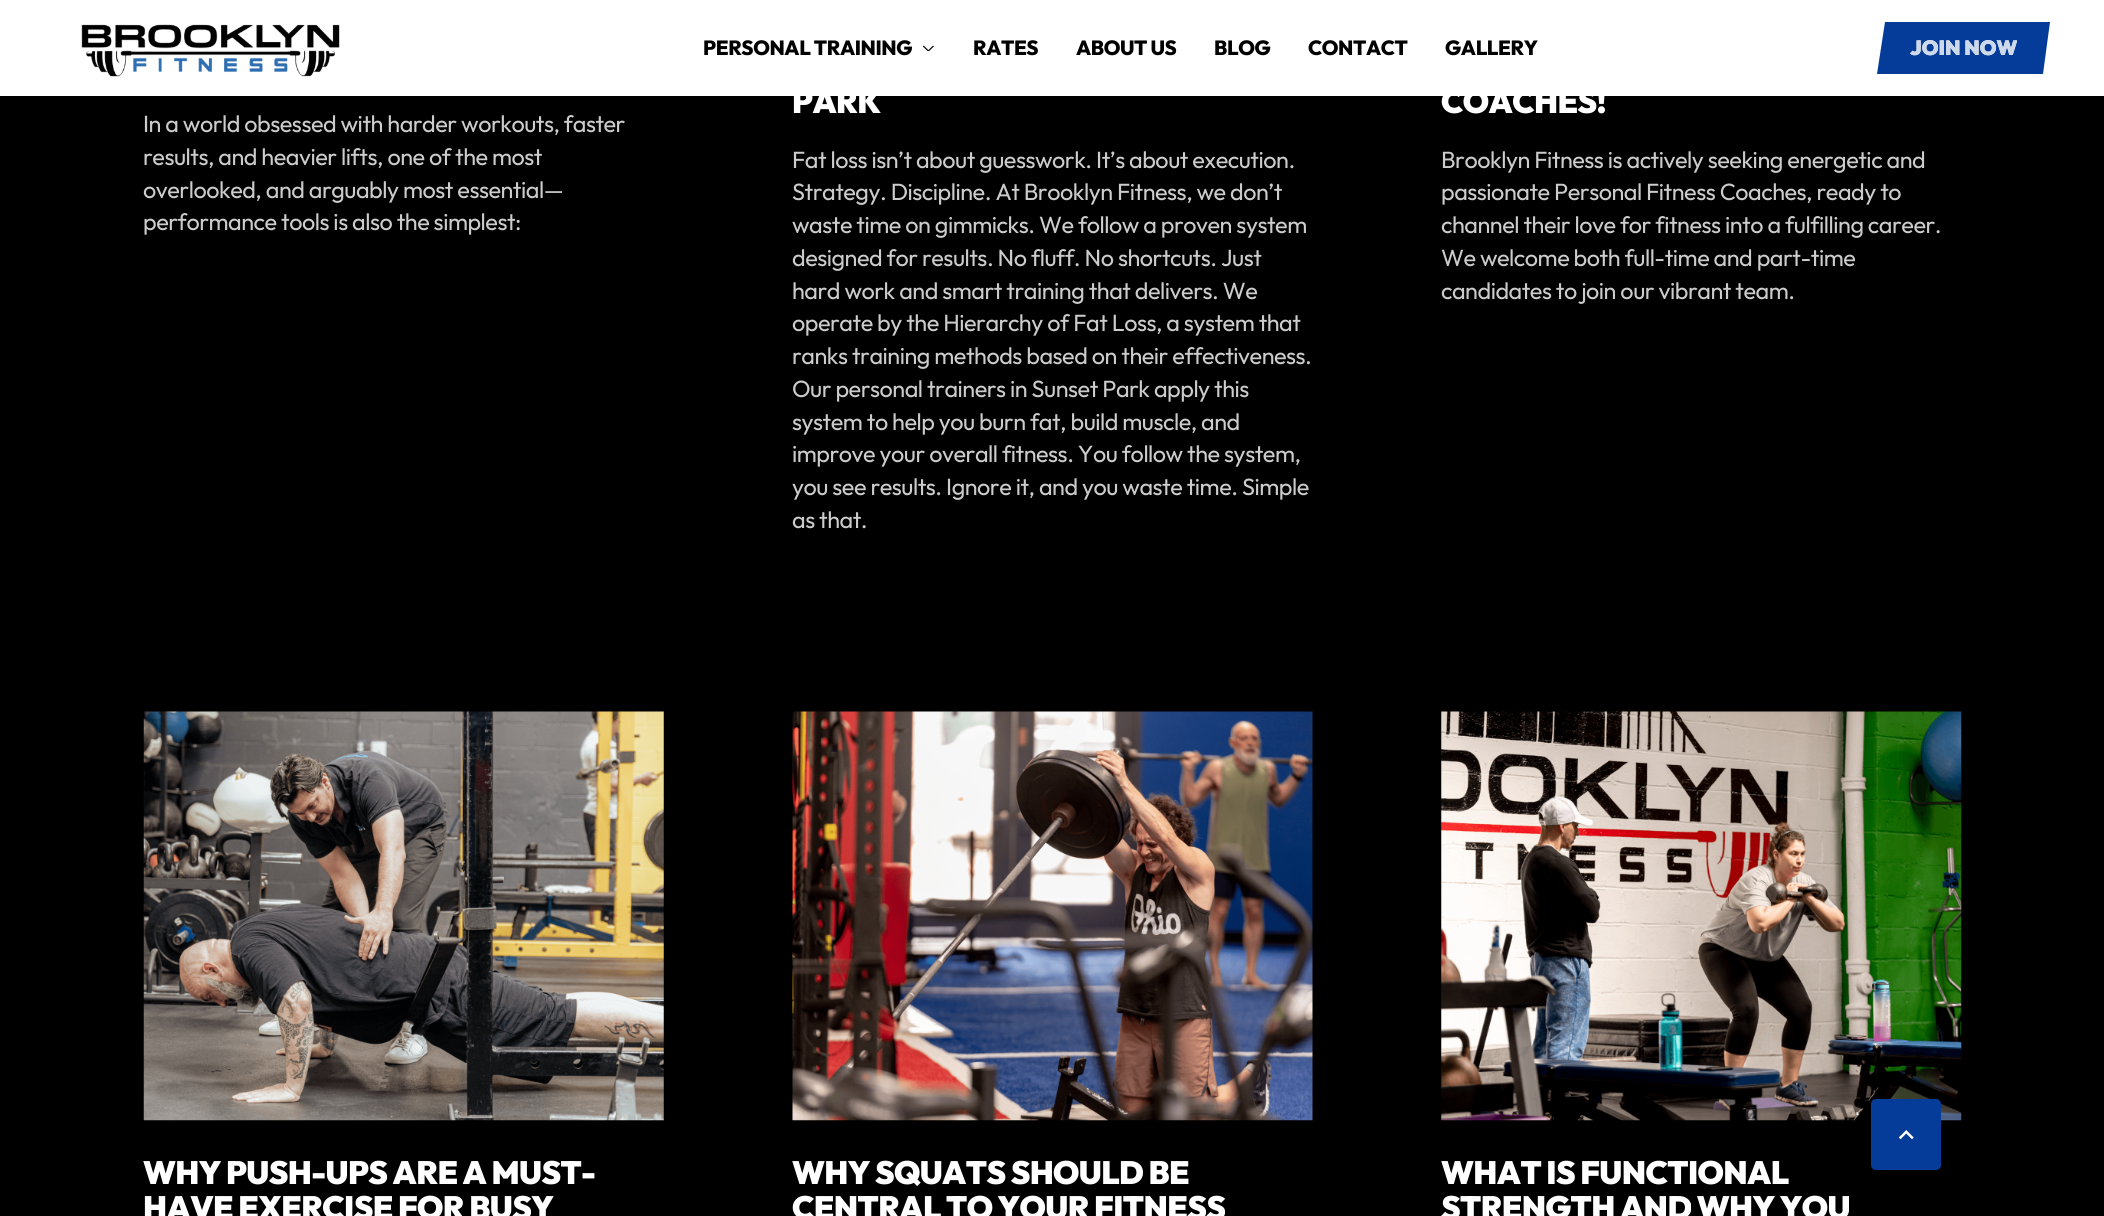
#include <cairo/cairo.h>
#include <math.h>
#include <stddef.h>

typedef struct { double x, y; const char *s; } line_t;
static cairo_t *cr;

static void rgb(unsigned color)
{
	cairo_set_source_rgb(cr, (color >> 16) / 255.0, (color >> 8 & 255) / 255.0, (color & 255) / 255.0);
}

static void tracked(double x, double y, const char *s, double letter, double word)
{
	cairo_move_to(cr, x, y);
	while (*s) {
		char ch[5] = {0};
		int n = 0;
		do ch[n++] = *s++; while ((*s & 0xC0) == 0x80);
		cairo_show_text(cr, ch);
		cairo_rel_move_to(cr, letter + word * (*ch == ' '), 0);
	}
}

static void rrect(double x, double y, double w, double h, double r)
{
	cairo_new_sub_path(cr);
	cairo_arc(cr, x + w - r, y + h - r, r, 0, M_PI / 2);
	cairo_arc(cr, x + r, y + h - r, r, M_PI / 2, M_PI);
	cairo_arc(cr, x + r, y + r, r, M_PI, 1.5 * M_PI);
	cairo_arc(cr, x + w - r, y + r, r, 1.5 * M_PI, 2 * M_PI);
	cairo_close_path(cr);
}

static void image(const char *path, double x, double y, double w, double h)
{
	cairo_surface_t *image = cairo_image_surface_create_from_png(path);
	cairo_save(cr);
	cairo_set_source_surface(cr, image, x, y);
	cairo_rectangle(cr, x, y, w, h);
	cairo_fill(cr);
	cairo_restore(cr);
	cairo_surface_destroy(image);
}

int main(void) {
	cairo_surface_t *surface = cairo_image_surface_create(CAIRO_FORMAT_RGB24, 2104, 1216);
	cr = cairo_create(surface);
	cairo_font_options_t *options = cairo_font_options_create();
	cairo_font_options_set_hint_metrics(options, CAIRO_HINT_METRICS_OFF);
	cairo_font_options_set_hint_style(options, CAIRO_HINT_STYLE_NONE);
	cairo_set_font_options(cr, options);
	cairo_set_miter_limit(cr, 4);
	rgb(0x000000);
	cairo_paint(cr);
	rgb(0xffffff);
	cairo_rectangle(cr, 0, 0, 2104, 96);
	cairo_fill(cr);
	image("img/1.png", 81, 24, 259, 53);
	image("img/2.png", 923, 45, 11, 6);
	rgb(0x053b99);
	cairo_new_path(cr);
	cairo_move_to(cr, 1885, 22);
	cairo_line_to(cr, 2050, 22);
	cairo_line_to(cr, 2043, 74);
	cairo_line_to(cr, 1877, 74);
	cairo_close_path(cr);
	cairo_fill(cr);
	image("img/3.png", 143, 711, 521, 410);
	image("img/4.png", 792, 711, 521, 410);
	image("img/5.png", 1441, 711, 521, 410);
	rrect(1871, 1099, 70, 71, 5);
	cairo_fill(cr);
	image("img/6.png", 1899, 1130, 15, 10);
	cairo_select_font_face(cr, "Outfit ExtraBold", CAIRO_FONT_SLANT_NORMAL, CAIRO_FONT_WEIGHT_NORMAL);
	cairo_set_font_size(cr, 20.5);
	rgb(0x000000);
	{
		static const line_t items[] = {
			{703, 55, "PERSONAL TRAINING"},
			{973, 55, "RATES"},
			{1076, 55, "ABOUT US"},
			{1214, 55, "BLOG"},
			{1308, 55, "CONTACT"},
			{1445, 55, "GALLERY"},
		};
		for (size_t i = 0; i < sizeof items / sizeof *items; i++) {
			tracked(items[i].x, items[i].y, items[i].s, -0.4, 0);
		}
	}
	cairo_select_font_face(cr, "Outfit Black", CAIRO_FONT_SLANT_NORMAL, CAIRO_FONT_WEIGHT_NORMAL);
	rgb(0xffffff);
	cairo_move_to(cr, 1910, 55);
	cairo_show_text(cr, "JOIN NOW");
	rgb(0xcdd8eb);
	cairo_move_to(cr, 1910, 55);
	cairo_show_text(cr, "JOIN NOW");
	cairo_select_font_face(cr, "Outfit", CAIRO_FONT_SLANT_NORMAL, CAIRO_FONT_WEIGHT_NORMAL);
	cairo_set_font_size(cr, 23.4);
	rgb(0xcccccc);
	{
		static const line_t items[] = {
			{143, 132, "In a world obsessed with harder workouts, faster"},
			{143, 165, "results, and heavier lifts, one of the most"},
			{143, 198, "overlooked, and arguably most essential—"},
			{143, 230, "performance tools is also the simplest:"},
		};
		for (size_t i = 0; i < sizeof items / sizeof *items; i++) {
			tracked(items[i].x, items[i].y, items[i].s, -0.47, 0);
		}
	}
	cairo_select_font_face(cr, "Outfit Black", CAIRO_FONT_SLANT_NORMAL, CAIRO_FONT_WEIGHT_NORMAL);
	cairo_set_font_size(cr, 32.2);
	rgb(0xffffff);
	tracked(792, 113, "PARK", -0.6, 0);
	cairo_select_font_face(cr, "Outfit", CAIRO_FONT_SLANT_NORMAL, CAIRO_FONT_WEIGHT_NORMAL);
	cairo_set_font_size(cr, 23.4);
	rgb(0xcccccc);
	{
		static const line_t items[] = {
			{792, 168, "Fat loss isn’t about guesswork. It’s about execution."},
			{792, 200, "Strategy. Discipline. At Brooklyn Fitness, we don’t"},
			{792, 233, "waste time on gimmicks. We follow a proven system"},
			{792, 266, "designed for results. No fluff. No shortcuts. Just"},
			{792, 299, "hard work and smart training that delivers. We"},
			{792, 331, "operate by the Hierarchy of Fat Loss, a system that"},
			{792, 364, "ranks training methods based on their effectiveness."},
			{792, 397, "Our personal trainers in Sunset Park apply this"},
			{792, 430, "system to help you burn fat, build muscle, and"},
			{792, 462, "improve your overall fitness. You follow the system,"},
			{792, 495, "you see results. Ignore it, and you waste time. Simple"},
			{792, 528, "as that."},
		};
		for (size_t i = 0; i < sizeof items / sizeof *items; i++) {
			tracked(items[i].x, items[i].y, items[i].s, -0.47, 0);
		}
	}
	cairo_select_font_face(cr, "Outfit Black", CAIRO_FONT_SLANT_NORMAL, CAIRO_FONT_WEIGHT_NORMAL);
	cairo_set_font_size(cr, 32.2);
	rgb(0xffffff);
	tracked(1441, 113, "COACHES!", -0.6, 0);
	cairo_select_font_face(cr, "Outfit", CAIRO_FONT_SLANT_NORMAL, CAIRO_FONT_WEIGHT_NORMAL);
	cairo_set_font_size(cr, 23.4);
	rgb(0xcccccc);
	{
		static const line_t items[] = {
			{1441, 168, "Brooklyn Fitness is actively seeking energetic and"},
			{1441, 200, "passionate Personal Fitness Coaches, ready to"},
			{1441, 233, "channel their love for fitness into a fulfilling career."},
			{1441, 266, "We welcome both full-time and part-time"},
			{1441, 299, "candidates to join our vibrant team."},
		};
		for (size_t i = 0; i < sizeof items / sizeof *items; i++) {
			tracked(items[i].x, items[i].y, items[i].s, -0.47, 0);
		}
	}
	cairo_select_font_face(cr, "Outfit Black", CAIRO_FONT_SLANT_NORMAL, CAIRO_FONT_WEIGHT_NORMAL);
	cairo_set_font_size(cr, 32.2);
	rgb(0xffffff);
	{
		static const line_t items[] = {
			{143, 1184, "WHY PUSH-UPS ARE A MUST-"},
			{143, 1219, "HAVE EXERCISE FOR BUSY"},
			{792, 1184, "WHY SQUATS SHOULD BE"},
			{792, 1219, "CENTRAL TO YOUR FITNESS"},
			{1441, 1184, "WHAT IS FUNCTIONAL"},
			{1441, 1219, "STRENGTH AND WHY YOU"},
		};
		for (size_t i = 0; i < sizeof items / sizeof *items; i++) {
			tracked(items[i].x, items[i].y, items[i].s, -0.6, 0);
		}
	}
	cairo_surface_write_to_png(surface, "page.png");
	cairo_font_options_destroy(options);
	cairo_destroy(cr);
	cairo_surface_destroy(surface);
	return 0;
}
